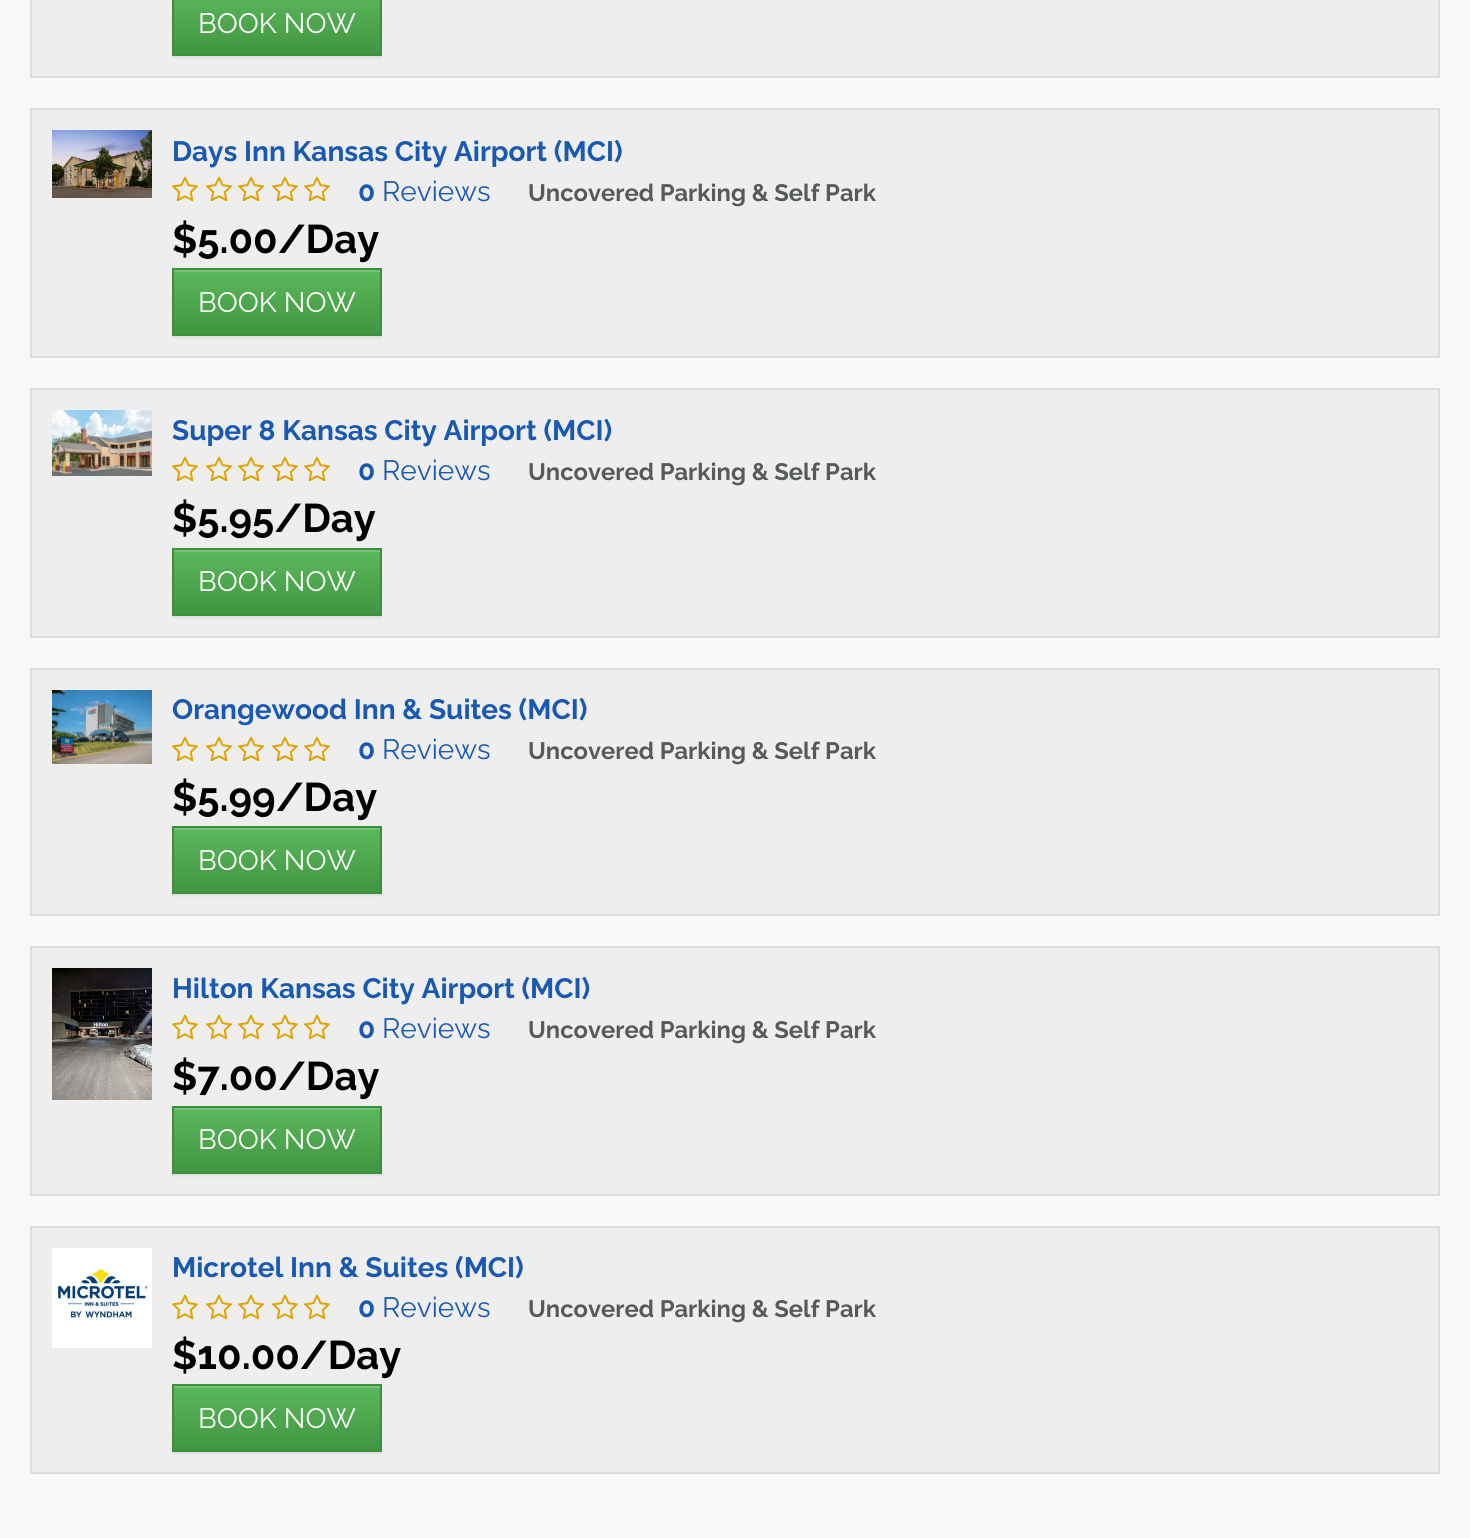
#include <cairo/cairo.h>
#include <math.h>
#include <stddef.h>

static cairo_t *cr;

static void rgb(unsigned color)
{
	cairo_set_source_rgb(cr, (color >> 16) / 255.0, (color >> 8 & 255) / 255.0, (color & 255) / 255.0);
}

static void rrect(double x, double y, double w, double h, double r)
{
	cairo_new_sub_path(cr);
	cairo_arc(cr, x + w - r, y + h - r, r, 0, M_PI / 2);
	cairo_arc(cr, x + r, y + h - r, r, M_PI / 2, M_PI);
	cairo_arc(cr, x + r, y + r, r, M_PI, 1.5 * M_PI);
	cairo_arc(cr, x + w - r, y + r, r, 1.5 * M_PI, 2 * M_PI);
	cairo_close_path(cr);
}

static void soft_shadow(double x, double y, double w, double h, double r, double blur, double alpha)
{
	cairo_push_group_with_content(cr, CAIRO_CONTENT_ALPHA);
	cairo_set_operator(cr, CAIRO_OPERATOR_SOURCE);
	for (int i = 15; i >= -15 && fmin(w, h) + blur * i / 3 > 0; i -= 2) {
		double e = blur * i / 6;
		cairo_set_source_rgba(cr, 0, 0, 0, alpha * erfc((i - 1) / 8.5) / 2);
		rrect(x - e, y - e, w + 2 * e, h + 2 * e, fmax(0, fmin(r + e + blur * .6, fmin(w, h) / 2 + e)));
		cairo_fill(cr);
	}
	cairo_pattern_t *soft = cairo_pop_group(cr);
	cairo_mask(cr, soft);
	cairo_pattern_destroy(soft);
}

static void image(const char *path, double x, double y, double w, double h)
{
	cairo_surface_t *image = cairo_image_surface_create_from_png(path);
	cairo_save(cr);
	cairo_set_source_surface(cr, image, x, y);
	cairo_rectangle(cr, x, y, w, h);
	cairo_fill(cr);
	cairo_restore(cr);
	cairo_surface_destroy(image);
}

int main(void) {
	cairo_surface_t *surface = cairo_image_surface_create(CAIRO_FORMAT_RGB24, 1470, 1538);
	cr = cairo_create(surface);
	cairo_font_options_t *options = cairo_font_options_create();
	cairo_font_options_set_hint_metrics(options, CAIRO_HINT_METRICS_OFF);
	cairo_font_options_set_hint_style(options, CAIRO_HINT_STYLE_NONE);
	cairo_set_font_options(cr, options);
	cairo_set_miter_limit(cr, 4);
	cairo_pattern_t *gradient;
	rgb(0xf8f8f8);
	cairo_paint(cr);
	rgb(0xeeeeee);
	cairo_rectangle(cr, 31, -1, 1408, 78);
	cairo_fill_preserve(cr);
	rgb(0xdddddd);
	cairo_stroke(cr);
	rgb(0x000000);
	soft_shadow(172, -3, 210, 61, 0, 1, 0.07);
	gradient = cairo_pattern_create_linear(277, -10, 277, 54);
	cairo_pattern_add_color_stop_rgba(gradient, 0, 0.361, 0.722, 0.361, 1);
	cairo_pattern_add_color_stop_rgba(gradient, 1, 0.255, 0.588, 0.255, 1);
	cairo_set_source(cr, gradient);
	cairo_pattern_destroy(gradient);
	cairo_rectangle(cr, 174, 0, 206, 54);
	cairo_fill(cr);
	cairo_rectangle(cr, 173, -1, 208, 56);
	rgb(0x3e8f3e);
	cairo_stroke(cr);
	rgb(0xeeeeee);
	cairo_rectangle(cr, 31, 109, 1408, 248);
	cairo_fill_preserve(cr);
	rgb(0xdddddd);
	cairo_stroke(cr);
	image("img/1.png", 52, 130, 100, 68);
	image("img/2.png", 172, 176, 26, 26);
	image("img/2.png", 206, 176, 26, 26);
	image("img/2.png", 238, 176, 26, 26);
	image("img/2.png", 272, 176, 26, 26);
	image("img/2.png", 304, 176, 26, 26);
	rgb(0x000000);
	soft_shadow(172, 270, 210, 68, 0, 1, 0.07);
	gradient = cairo_pattern_create_linear(277, 270, 277, 334);
	cairo_pattern_add_color_stop_rgba(gradient, 0, 0.361, 0.722, 0.361, 1);
	cairo_pattern_add_color_stop_rgba(gradient, 1, 0.255, 0.588, 0.255, 1);
	cairo_set_source(cr, gradient);
	cairo_pattern_destroy(gradient);
	cairo_rectangle(cr, 174, 272, 206, 62);
	cairo_fill(cr);
	rgb(0x74c274);
	cairo_rectangle(cr, 174, 270, 206, 2);
	cairo_fill(cr);
	cairo_rectangle(cr, 173, 269, 208, 66);
	rgb(0x3e8f3e);
	cairo_stroke(cr);
	rgb(0xeeeeee);
	cairo_rectangle(cr, 31, 389, 1408, 248);
	cairo_fill_preserve(cr);
	rgb(0xdddddd);
	cairo_stroke(cr);
	image("img/3.png", 52, 410, 100, 66);
	image("img/2.png", 172, 456, 26, 26);
	image("img/2.png", 206, 456, 26, 26);
	image("img/2.png", 238, 456, 26, 26);
	image("img/2.png", 272, 456, 26, 26);
	image("img/2.png", 304, 456, 26, 26);
	rgb(0x000000);
	soft_shadow(172, 550, 210, 68, 0, 1, 0.07);
	gradient = cairo_pattern_create_linear(277, 550, 277, 614);
	cairo_pattern_add_color_stop_rgba(gradient, 0, 0.361, 0.722, 0.361, 1);
	cairo_pattern_add_color_stop_rgba(gradient, 1, 0.255, 0.588, 0.255, 1);
	cairo_set_source(cr, gradient);
	cairo_pattern_destroy(gradient);
	cairo_rectangle(cr, 174, 552, 206, 62);
	cairo_fill(cr);
	rgb(0x74c274);
	cairo_rectangle(cr, 174, 550, 206, 2);
	cairo_fill(cr);
	cairo_rectangle(cr, 173, 549, 208, 66);
	rgb(0x3e8f3e);
	cairo_stroke(cr);
	rgb(0xeeeeee);
	cairo_rectangle(cr, 31, 669, 1408, 246);
	cairo_fill_preserve(cr);
	rgb(0xdddddd);
	cairo_stroke(cr);
	image("img/4.png", 52, 690, 100, 74);
	image("img/2.png", 172, 736, 26, 26);
	image("img/2.png", 206, 736, 26, 26);
	image("img/2.png", 238, 736, 26, 26);
	image("img/2.png", 272, 736, 26, 26);
	image("img/2.png", 304, 736, 26, 26);
	rgb(0x000000);
	soft_shadow(172, 828, 210, 68, 0, 1, 0.07);
	gradient = cairo_pattern_create_linear(277, 828, 277, 892);
	cairo_pattern_add_color_stop_rgba(gradient, 0, 0.361, 0.722, 0.361, 1);
	cairo_pattern_add_color_stop_rgba(gradient, 1, 0.255, 0.588, 0.255, 1);
	cairo_set_source(cr, gradient);
	cairo_pattern_destroy(gradient);
	cairo_rectangle(cr, 174, 830, 206, 62);
	cairo_fill(cr);
	rgb(0x74c274);
	cairo_rectangle(cr, 174, 828, 206, 2);
	cairo_fill(cr);
	cairo_rectangle(cr, 173, 827, 208, 66);
	rgb(0x3e8f3e);
	cairo_stroke(cr);
	rgb(0xeeeeee);
	cairo_rectangle(cr, 31, 947, 1408, 248);
	cairo_fill_preserve(cr);
	rgb(0xdddddd);
	cairo_stroke(cr);
	image("img/5.png", 52, 968, 100, 132);
	image("img/2.png", 172, 1014, 26, 26);
	image("img/2.png", 206, 1014, 26, 26);
	image("img/2.png", 238, 1014, 26, 26);
	image("img/2.png", 272, 1014, 26, 26);
	image("img/2.png", 304, 1014, 26, 26);
	rgb(0x000000);
	soft_shadow(172, 1108, 210, 68, 0, 1, 0.07);
	gradient = cairo_pattern_create_linear(277, 1108, 277, 1172);
	cairo_pattern_add_color_stop_rgba(gradient, 0, 0.361, 0.722, 0.361, 1);
	cairo_pattern_add_color_stop_rgba(gradient, 1, 0.255, 0.588, 0.255, 1);
	cairo_set_source(cr, gradient);
	cairo_pattern_destroy(gradient);
	cairo_rectangle(cr, 174, 1110, 206, 62);
	cairo_fill(cr);
	rgb(0x74c274);
	cairo_rectangle(cr, 174, 1108, 206, 2);
	cairo_fill(cr);
	cairo_rectangle(cr, 173, 1107, 208, 66);
	rgb(0x3e8f3e);
	cairo_stroke(cr);
	rgb(0xeeeeee);
	cairo_rectangle(cr, 31, 1227, 1408, 246);
	cairo_fill_preserve(cr);
	rgb(0xdddddd);
	cairo_stroke(cr);
	image("img/6.png", 52, 1248, 100, 100);
	image("img/2.png", 172, 1294, 26, 26);
	image("img/2.png", 206, 1294, 26, 26);
	image("img/2.png", 238, 1294, 26, 26);
	image("img/2.png", 272, 1294, 26, 26);
	image("img/2.png", 304, 1294, 26, 26);
	rgb(0x000000);
	soft_shadow(172, 1386, 210, 68, 0, 1, 0.07);
	gradient = cairo_pattern_create_linear(277, 1386, 277, 1450);
	cairo_pattern_add_color_stop_rgba(gradient, 0, 0.361, 0.722, 0.361, 1);
	cairo_pattern_add_color_stop_rgba(gradient, 1, 0.255, 0.588, 0.255, 1);
	cairo_set_source(cr, gradient);
	cairo_pattern_destroy(gradient);
	cairo_rectangle(cr, 174, 1388, 206, 62);
	cairo_fill(cr);
	rgb(0x74c274);
	cairo_rectangle(cr, 174, 1386, 206, 2);
	cairo_fill(cr);
	cairo_rectangle(cr, 173, 1385, 208, 66);
	rgb(0x3e8f3e);
	cairo_stroke(cr);
	cairo_select_font_face(cr, "Raleway", CAIRO_FONT_SLANT_NORMAL, CAIRO_FONT_WEIGHT_NORMAL);
	cairo_set_font_size(cr, 28);
	rgb(0xffffff);
	cairo_move_to(cr, 198, 33);
	cairo_show_text(cr, "BOOK NOW");
	cairo_select_font_face(cr, "Raleway", CAIRO_FONT_SLANT_NORMAL, CAIRO_FONT_WEIGHT_BOLD);
	rgb(0x1a59b2);
	cairo_move_to(cr, 172, 161);
	cairo_show_text(cr, "Days Inn Kansas City Airport (MCI)");
	cairo_move_to(cr, 358, 201);
	cairo_show_text(cr, "0");
	cairo_select_font_face(cr, "Raleway", CAIRO_FONT_SLANT_NORMAL, CAIRO_FONT_WEIGHT_NORMAL);
	cairo_move_to(cr, 382, 201);
	cairo_show_text(cr, "Reviews");
	cairo_select_font_face(cr, "Raleway", CAIRO_FONT_SLANT_NORMAL, CAIRO_FONT_WEIGHT_BOLD);
	cairo_set_font_size(cr, 23.75);
	rgb(0x565a5c);
	cairo_move_to(cr, 528, 201);
	cairo_show_text(cr, "Uncovered Parking & Self Park");
	cairo_set_font_size(cr, 40);
	rgb(0x000000);
	cairo_move_to(cr, 172, 253);
	cairo_show_text(cr, "$5.00/Day");
	cairo_select_font_face(cr, "Raleway", CAIRO_FONT_SLANT_NORMAL, CAIRO_FONT_WEIGHT_NORMAL);
	cairo_set_font_size(cr, 28);
	rgb(0xffffff);
	cairo_move_to(cr, 198, 312);
	cairo_show_text(cr, "BOOK NOW");
	cairo_select_font_face(cr, "Raleway", CAIRO_FONT_SLANT_NORMAL, CAIRO_FONT_WEIGHT_BOLD);
	rgb(0x1a59b2);
	cairo_move_to(cr, 172, 440);
	cairo_show_text(cr, "Super 8 Kansas City Airport (MCI)");
	cairo_move_to(cr, 358, 480);
	cairo_show_text(cr, "0");
	cairo_select_font_face(cr, "Raleway", CAIRO_FONT_SLANT_NORMAL, CAIRO_FONT_WEIGHT_NORMAL);
	cairo_move_to(cr, 382, 480);
	cairo_show_text(cr, "Reviews");
	cairo_select_font_face(cr, "Raleway", CAIRO_FONT_SLANT_NORMAL, CAIRO_FONT_WEIGHT_BOLD);
	cairo_set_font_size(cr, 23.75);
	rgb(0x565a5c);
	cairo_move_to(cr, 528, 480);
	cairo_show_text(cr, "Uncovered Parking & Self Park");
	cairo_set_font_size(cr, 40);
	rgb(0x000000);
	cairo_move_to(cr, 172, 532);
	cairo_show_text(cr, "$5.95/Day");
	cairo_select_font_face(cr, "Raleway", CAIRO_FONT_SLANT_NORMAL, CAIRO_FONT_WEIGHT_NORMAL);
	cairo_set_font_size(cr, 28);
	rgb(0xffffff);
	cairo_move_to(cr, 198, 591);
	cairo_show_text(cr, "BOOK NOW");
	cairo_select_font_face(cr, "Raleway", CAIRO_FONT_SLANT_NORMAL, CAIRO_FONT_WEIGHT_BOLD);
	rgb(0x1a59b2);
	cairo_move_to(cr, 172, 719);
	cairo_show_text(cr, "Orangewood Inn & Suites (MCI)");
	cairo_move_to(cr, 358, 759);
	cairo_show_text(cr, "0");
	cairo_select_font_face(cr, "Raleway", CAIRO_FONT_SLANT_NORMAL, CAIRO_FONT_WEIGHT_NORMAL);
	cairo_move_to(cr, 382, 759);
	cairo_show_text(cr, "Reviews");
	cairo_select_font_face(cr, "Raleway", CAIRO_FONT_SLANT_NORMAL, CAIRO_FONT_WEIGHT_BOLD);
	cairo_set_font_size(cr, 23.75);
	rgb(0x565a5c);
	cairo_move_to(cr, 528, 759);
	cairo_show_text(cr, "Uncovered Parking & Self Park");
	cairo_set_font_size(cr, 40);
	rgb(0x000000);
	cairo_move_to(cr, 172, 811);
	cairo_show_text(cr, "$5.99/Day");
	cairo_select_font_face(cr, "Raleway", CAIRO_FONT_SLANT_NORMAL, CAIRO_FONT_WEIGHT_NORMAL);
	cairo_set_font_size(cr, 28);
	rgb(0xffffff);
	cairo_move_to(cr, 198, 870);
	cairo_show_text(cr, "BOOK NOW");
	cairo_select_font_face(cr, "Raleway", CAIRO_FONT_SLANT_NORMAL, CAIRO_FONT_WEIGHT_BOLD);
	rgb(0x1a59b2);
	cairo_move_to(cr, 172, 998);
	cairo_show_text(cr, "Hilton Kansas City Airport (MCI)");
	cairo_move_to(cr, 358, 1038);
	cairo_show_text(cr, "0");
	cairo_select_font_face(cr, "Raleway", CAIRO_FONT_SLANT_NORMAL, CAIRO_FONT_WEIGHT_NORMAL);
	cairo_move_to(cr, 382, 1038);
	cairo_show_text(cr, "Reviews");
	cairo_select_font_face(cr, "Raleway", CAIRO_FONT_SLANT_NORMAL, CAIRO_FONT_WEIGHT_BOLD);
	cairo_set_font_size(cr, 23.75);
	rgb(0x565a5c);
	cairo_move_to(cr, 528, 1038);
	cairo_show_text(cr, "Uncovered Parking & Self Park");
	cairo_set_font_size(cr, 40);
	rgb(0x000000);
	cairo_move_to(cr, 172, 1090);
	cairo_show_text(cr, "$7.00/Day");
	cairo_select_font_face(cr, "Raleway", CAIRO_FONT_SLANT_NORMAL, CAIRO_FONT_WEIGHT_NORMAL);
	cairo_set_font_size(cr, 28);
	rgb(0xffffff);
	cairo_move_to(cr, 198, 1149);
	cairo_show_text(cr, "BOOK NOW");
	cairo_select_font_face(cr, "Raleway", CAIRO_FONT_SLANT_NORMAL, CAIRO_FONT_WEIGHT_BOLD);
	rgb(0x1a59b2);
	cairo_move_to(cr, 172, 1277);
	cairo_show_text(cr, "Microtel Inn & Suites (MCI)");
	cairo_move_to(cr, 358, 1317);
	cairo_show_text(cr, "0");
	cairo_select_font_face(cr, "Raleway", CAIRO_FONT_SLANT_NORMAL, CAIRO_FONT_WEIGHT_NORMAL);
	cairo_move_to(cr, 382, 1317);
	cairo_show_text(cr, "Reviews");
	cairo_select_font_face(cr, "Raleway", CAIRO_FONT_SLANT_NORMAL, CAIRO_FONT_WEIGHT_BOLD);
	cairo_set_font_size(cr, 23.75);
	rgb(0x565a5c);
	cairo_move_to(cr, 528, 1317);
	cairo_show_text(cr, "Uncovered Parking & Self Park");
	cairo_set_font_size(cr, 40);
	rgb(0x000000);
	cairo_move_to(cr, 172, 1369);
	cairo_show_text(cr, "$10.00/Day");
	cairo_select_font_face(cr, "Raleway", CAIRO_FONT_SLANT_NORMAL, CAIRO_FONT_WEIGHT_NORMAL);
	cairo_set_font_size(cr, 28);
	rgb(0xffffff);
	cairo_move_to(cr, 198, 1428);
	cairo_show_text(cr, "BOOK NOW");
	cairo_surface_write_to_png(surface, "page.png");
	cairo_font_options_destroy(options);
	cairo_destroy(cr);
	cairo_surface_destroy(surface);
	return 0;
}
